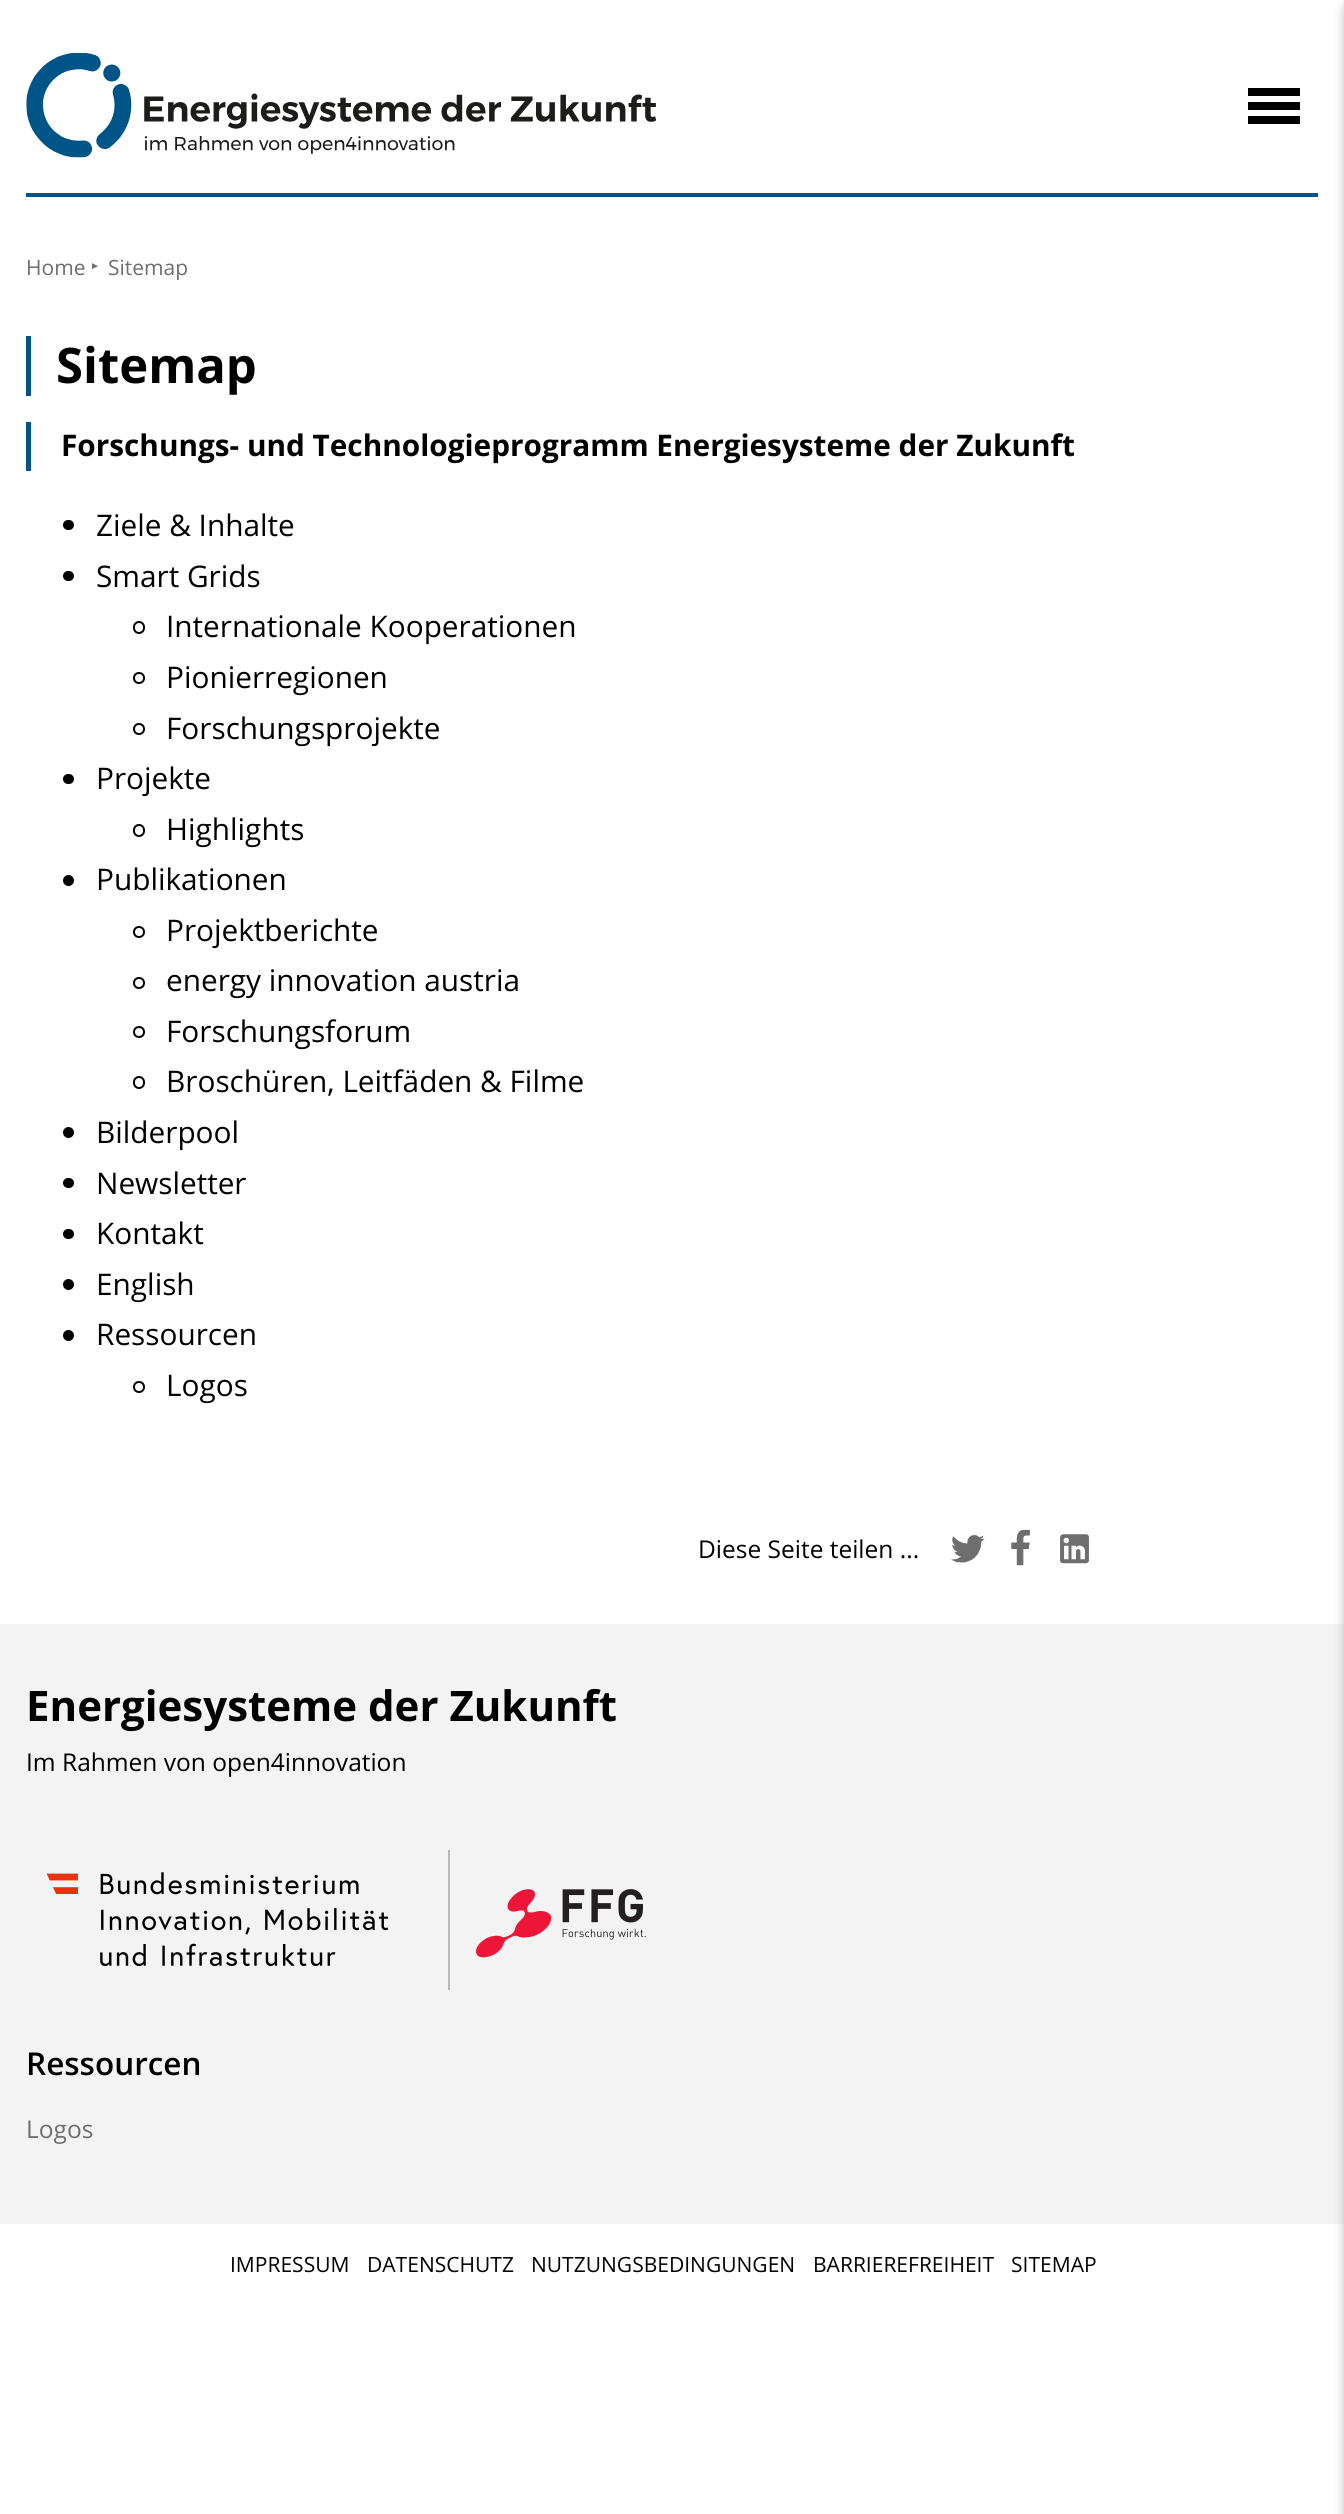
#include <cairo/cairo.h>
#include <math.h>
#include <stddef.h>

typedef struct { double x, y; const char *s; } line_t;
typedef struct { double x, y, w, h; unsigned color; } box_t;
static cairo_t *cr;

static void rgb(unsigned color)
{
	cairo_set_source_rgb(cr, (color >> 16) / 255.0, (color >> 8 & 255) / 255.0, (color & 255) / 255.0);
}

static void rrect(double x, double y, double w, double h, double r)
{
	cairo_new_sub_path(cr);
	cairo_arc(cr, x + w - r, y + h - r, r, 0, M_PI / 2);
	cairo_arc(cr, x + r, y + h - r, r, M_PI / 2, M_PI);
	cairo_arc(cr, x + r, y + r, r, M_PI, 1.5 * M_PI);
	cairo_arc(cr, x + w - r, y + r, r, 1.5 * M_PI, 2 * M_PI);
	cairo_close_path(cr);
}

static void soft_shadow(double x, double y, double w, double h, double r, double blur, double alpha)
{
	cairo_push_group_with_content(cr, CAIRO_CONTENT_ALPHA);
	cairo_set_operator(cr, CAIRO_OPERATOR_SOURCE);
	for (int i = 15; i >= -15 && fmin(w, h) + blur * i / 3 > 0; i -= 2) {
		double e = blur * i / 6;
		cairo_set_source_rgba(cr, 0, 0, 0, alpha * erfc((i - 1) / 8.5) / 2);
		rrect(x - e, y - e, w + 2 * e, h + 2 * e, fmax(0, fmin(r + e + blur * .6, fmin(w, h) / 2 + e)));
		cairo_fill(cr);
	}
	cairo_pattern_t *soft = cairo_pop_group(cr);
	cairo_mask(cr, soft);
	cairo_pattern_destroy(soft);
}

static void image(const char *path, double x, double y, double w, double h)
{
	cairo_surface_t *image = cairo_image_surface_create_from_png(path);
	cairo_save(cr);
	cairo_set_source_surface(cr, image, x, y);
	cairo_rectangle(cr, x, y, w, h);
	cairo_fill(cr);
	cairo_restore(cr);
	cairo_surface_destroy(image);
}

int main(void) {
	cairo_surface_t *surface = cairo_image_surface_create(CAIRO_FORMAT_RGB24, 1344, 2514);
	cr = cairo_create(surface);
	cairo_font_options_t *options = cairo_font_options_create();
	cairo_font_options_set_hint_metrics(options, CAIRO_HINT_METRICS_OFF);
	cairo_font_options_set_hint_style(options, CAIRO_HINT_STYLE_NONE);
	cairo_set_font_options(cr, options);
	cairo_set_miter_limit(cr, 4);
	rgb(0xffffff);
	cairo_paint(cr);
	image("img/1.png", 26, 53, 630, 105);
	{
		static const box_t items[] = {
			{1248, 102, 52, 8, 0x000000},
			{1248, 88, 52, 8, 0x000000},
			{1248, 116, 52, 8, 0x000000},
			{0, 1624, 1344, 600, 0xf3f3f3},
		};
		for (size_t i = 0; i < sizeof items / sizeof *items; i++) {
			rgb(items[i].color);
			cairo_rectangle(cr, items[i].x, items[i].y, items[i].w, items[i].h);
			cairo_fill(cr);
		}
	}
	rgb(0x000000);
	soft_shadow(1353, 9, 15, 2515, 0, 8, 1);
	{
		static const box_t items[] = {
			{26, 193, 1292, 4, 0x005588},
			{26, 336, 5, 60, 0x005588},
			{26, 422, 5, 49, 0x005588},
		};
		for (size_t i = 0; i < sizeof items / sizeof *items; i++) {
			rgb(items[i].color);
			cairo_rectangle(cr, items[i].x, items[i].y, items[i].w, items[i].h);
			cairo_fill(cr);
		}
	}
	rgb(0x000000);
	rrect(63, 520, 11, 10, 5);
	cairo_fill(cr);
	rrect(63, 571, 11, 10, 5);
	cairo_fill(cr);
	rrect(134, 622, 10, 11, 5);
	cairo_stroke(cr);
	cairo_arc(cr, 139, 678, 5, 0, 2 * M_PI);
	cairo_stroke(cr);
	cairo_arc(cr, 139, 729, 5, 0, 2 * M_PI);
	cairo_stroke(cr);
	rrect(63, 774, 11, 10, 5);
	cairo_fill(cr);
	rrect(134, 825, 10, 11, 5);
	cairo_stroke(cr);
	cairo_arc(cr, 68.5, 880.5, 5.5, 0, 2 * M_PI);
	cairo_fill(cr);
	cairo_arc(cr, 139, 932, 5, 0, 2 * M_PI);
	cairo_stroke(cr);
	cairo_arc(cr, 139, 983, 5, 0, 2 * M_PI);
	cairo_stroke(cr);
	cairo_arc(cr, 139, 1032, 5, 0, 2 * M_PI);
	cairo_stroke(cr);
	rrect(134, 1077, 10, 11, 5);
	cairo_stroke(cr);
	cairo_arc(cr, 68.5, 1132.5, 5.5, 0, 2 * M_PI);
	cairo_fill(cr);
	rrect(63, 1178, 11, 10, 5);
	cairo_fill(cr);
	rrect(63, 1229, 11, 10, 5);
	cairo_fill(cr);
	cairo_arc(cr, 68.5, 1284.5, 5.5, 0, 2 * M_PI);
	cairo_fill(cr);
	cairo_arc(cr, 68.5, 1335.5, 5.5, 0, 2 * M_PI);
	cairo_fill(cr);
	cairo_arc(cr, 139, 1387, 5, 0, 2 * M_PI);
	cairo_stroke(cr);
	image("img/2.png", 951, 1535, 34, 28);
	image("img/3.png", 1011, 1529, 19, 37);
	image("img/4.png", 1060, 1534, 29, 30);
	image("img/5.png", 46, 1872, 343, 95);
	rgb(0xb9b9b9);
	cairo_rectangle(cr, 448, 1850, 2, 140);
	cairo_fill(cr);
	image("img/6.png", 476, 1889, 170, 69);
	cairo_select_font_face(cr, "Open Sans", CAIRO_FONT_SLANT_NORMAL, CAIRO_FONT_WEIGHT_NORMAL);
	cairo_set_font_size(cr, 21);
	rgb(0x6e6e6e);
	cairo_move_to(cr, 26, 275);
	cairo_show_text(cr, "Home");
	cairo_select_font_face(cr, "Liberation Sans", CAIRO_FONT_SLANT_NORMAL, CAIRO_FONT_WEIGHT_NORMAL);
	cairo_set_font_size(cr, 10);
	cairo_move_to(cr, 90, 269);
	cairo_show_text(cr, "►");
	cairo_select_font_face(cr, "Open Sans", CAIRO_FONT_SLANT_NORMAL, CAIRO_FONT_WEIGHT_NORMAL);
	cairo_set_font_size(cr, 21);
	cairo_move_to(cr, 108, 275);
	cairo_show_text(cr, "Sitemap");
	cairo_select_font_face(cr, "Open Sans", CAIRO_FONT_SLANT_NORMAL, CAIRO_FONT_WEIGHT_BOLD);
	cairo_set_font_size(cr, 49);
	rgb(0x000000);
	cairo_move_to(cr, 56, 383);
	cairo_show_text(cr, "Sitemap");
	cairo_set_font_size(cr, 29.75);
	cairo_move_to(cr, 61, 456);
	cairo_show_text(cr, "Forschungs- und Technologieprogramm Energiesysteme der Zukunft");
	cairo_select_font_face(cr, "Open Sans", CAIRO_FONT_SLANT_NORMAL, CAIRO_FONT_WEIGHT_NORMAL);
	{
		static const line_t items[] = {
			{96, 536, "Ziele & Inhalte"},
			{96, 587, "Smart Grids"},
			{166, 637, "Internationale Kooperationen"},
			{166, 688, "Pionierregionen"},
			{166, 739, "Forschungsprojekte"},
			{96, 789, "Projekte"},
			{166, 840, "Highlights"},
			{96, 890, "Publikationen"},
			{166, 941, "Projektberichte"},
			{166, 991, "energy innovation austria"},
			{166, 1042, "Forschungsforum"},
			{166, 1092, "Broschüren, Leitfäden & Filme"},
			{96, 1143, "Bilderpool"},
			{96, 1194, "Newsletter"},
			{96, 1244, "Kontakt"},
			{96, 1295, "English"},
			{96, 1345, "Ressourcen"},
			{166, 1396, "Logos"},
		};
		for (size_t i = 0; i < sizeof items / sizeof *items; i++) {
			cairo_move_to(cr, items[i].x, items[i].y);
			cairo_show_text(cr, items[i].s);
		}
	}
	cairo_set_font_size(cr, 24.5);
	cairo_move_to(cr, 698, 1558);
	cairo_show_text(cr, "Diese Seite teilen ...");
	cairo_select_font_face(cr, "Open Sans", CAIRO_FONT_SLANT_NORMAL, CAIRO_FONT_WEIGHT_BOLD);
	cairo_set_font_size(cr, 42);
	cairo_move_to(cr, 26, 1721);
	cairo_show_text(cr, "Energiesysteme der Zukunft");
	cairo_select_font_face(cr, "Open Sans", CAIRO_FONT_SLANT_NORMAL, CAIRO_FONT_WEIGHT_NORMAL);
	cairo_set_font_size(cr, 24.5);
	cairo_move_to(cr, 26, 1771);
	cairo_show_text(cr, "Im Rahmen von open4innovation");
	cairo_select_font_face(cr, "Open Sans SemiBold", CAIRO_FONT_SLANT_NORMAL, CAIRO_FONT_WEIGHT_NORMAL);
	cairo_set_font_size(cr, 31.5);
	cairo_move_to(cr, 26, 2075);
	cairo_show_text(cr, "Ressourcen");
	cairo_select_font_face(cr, "Open Sans", CAIRO_FONT_SLANT_NORMAL, CAIRO_FONT_WEIGHT_NORMAL);
	cairo_set_font_size(cr, 24.5);
	rgb(0x6e6e6e);
	cairo_move_to(cr, 26, 2138);
	cairo_show_text(cr, "Logos");
	cairo_set_font_size(cr, 21);
	rgb(0x000000);
	{
		static const line_t items[] = {
			{230, 2272, "IMPRESSUM"},
			{367, 2272, "DATENSCHUTZ"},
			{531, 2272, "NUTZUNGSBEDINGUNGEN"},
			{813, 2272, "BARRIEREFREIHEIT"},
			{1011, 2272, "SITEMAP"},
		};
		for (size_t i = 0; i < sizeof items / sizeof *items; i++) {
			cairo_move_to(cr, items[i].x, items[i].y);
			cairo_show_text(cr, items[i].s);
		}
	}
	cairo_surface_write_to_png(surface, "page.png");
	cairo_font_options_destroy(options);
	cairo_destroy(cr);
	cairo_surface_destroy(surface);
	return 0;
}
